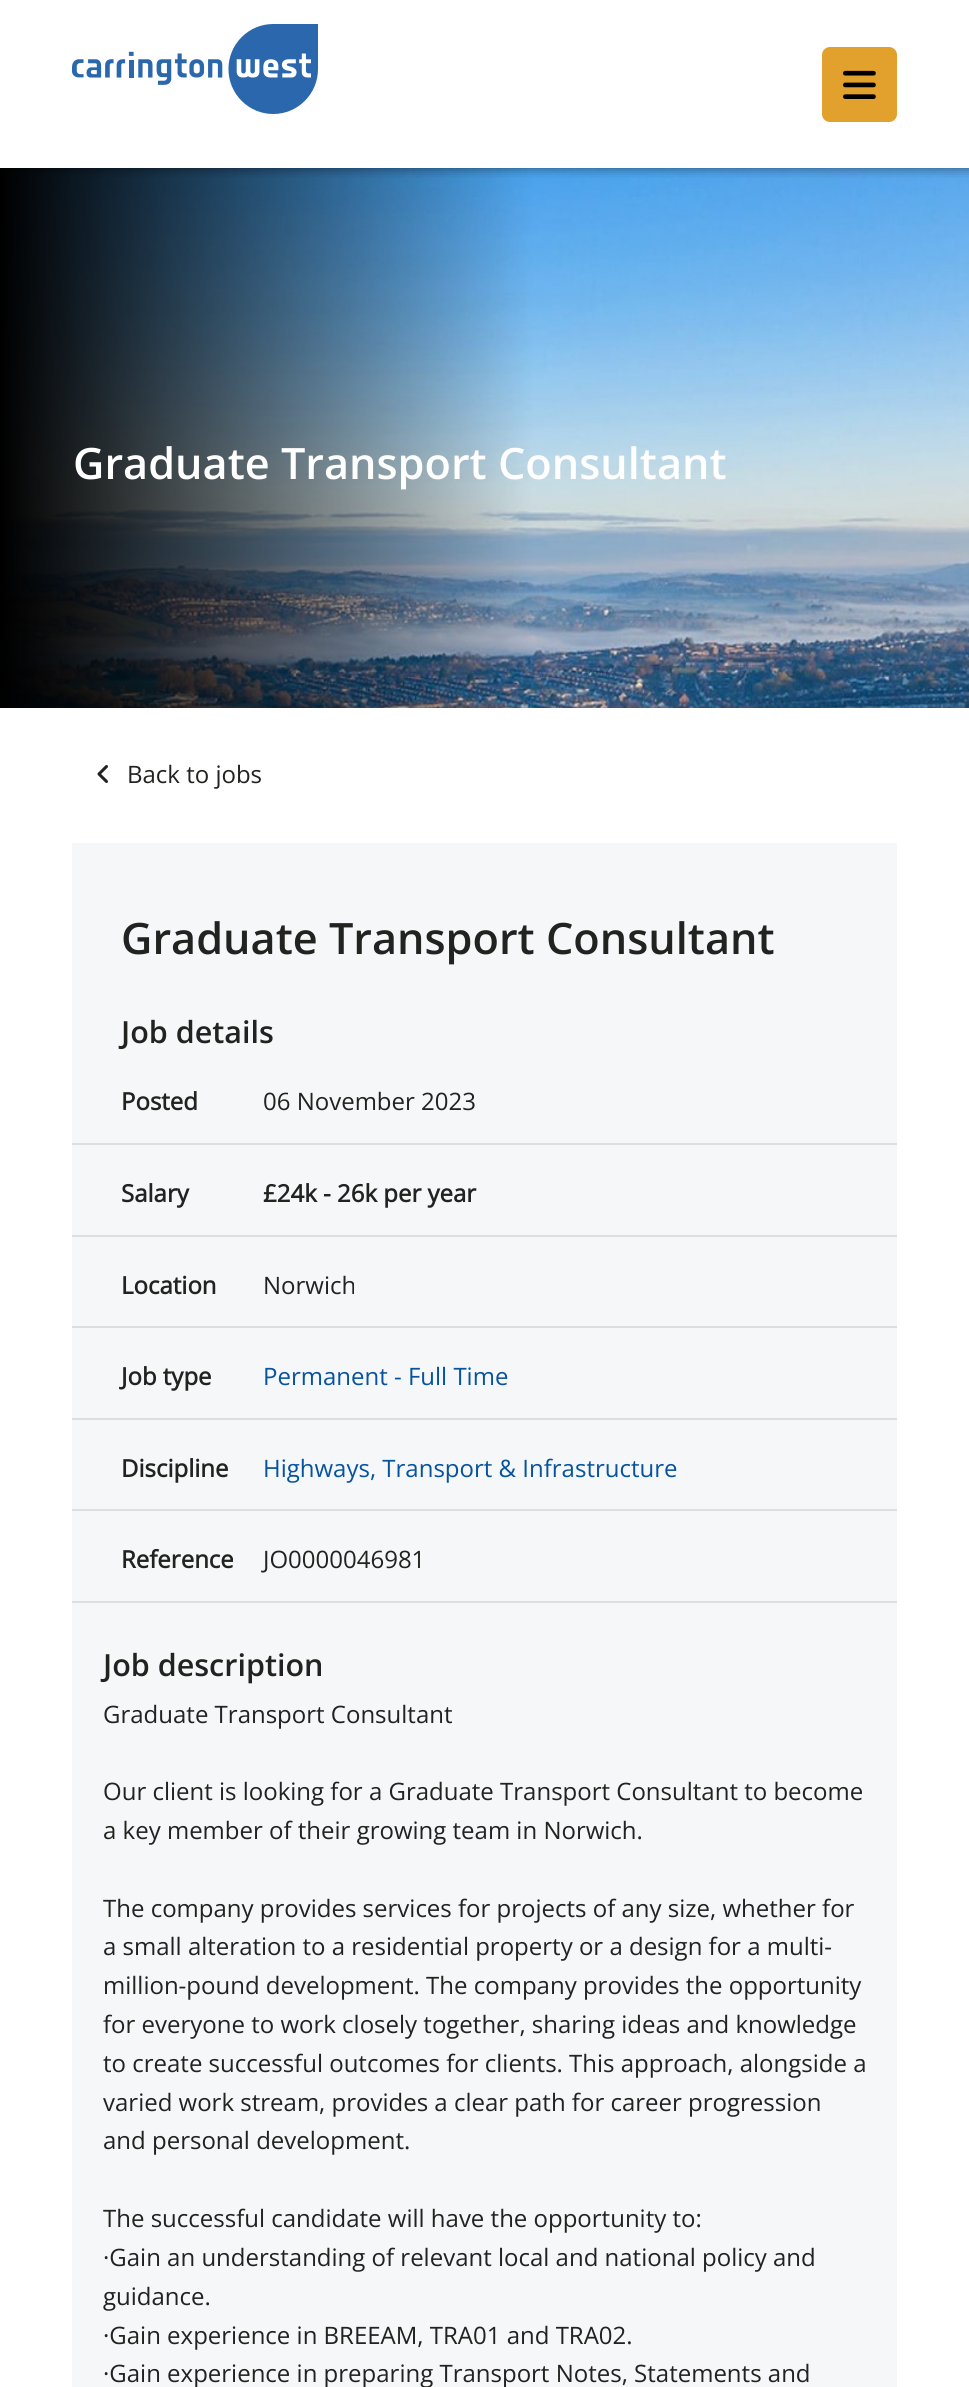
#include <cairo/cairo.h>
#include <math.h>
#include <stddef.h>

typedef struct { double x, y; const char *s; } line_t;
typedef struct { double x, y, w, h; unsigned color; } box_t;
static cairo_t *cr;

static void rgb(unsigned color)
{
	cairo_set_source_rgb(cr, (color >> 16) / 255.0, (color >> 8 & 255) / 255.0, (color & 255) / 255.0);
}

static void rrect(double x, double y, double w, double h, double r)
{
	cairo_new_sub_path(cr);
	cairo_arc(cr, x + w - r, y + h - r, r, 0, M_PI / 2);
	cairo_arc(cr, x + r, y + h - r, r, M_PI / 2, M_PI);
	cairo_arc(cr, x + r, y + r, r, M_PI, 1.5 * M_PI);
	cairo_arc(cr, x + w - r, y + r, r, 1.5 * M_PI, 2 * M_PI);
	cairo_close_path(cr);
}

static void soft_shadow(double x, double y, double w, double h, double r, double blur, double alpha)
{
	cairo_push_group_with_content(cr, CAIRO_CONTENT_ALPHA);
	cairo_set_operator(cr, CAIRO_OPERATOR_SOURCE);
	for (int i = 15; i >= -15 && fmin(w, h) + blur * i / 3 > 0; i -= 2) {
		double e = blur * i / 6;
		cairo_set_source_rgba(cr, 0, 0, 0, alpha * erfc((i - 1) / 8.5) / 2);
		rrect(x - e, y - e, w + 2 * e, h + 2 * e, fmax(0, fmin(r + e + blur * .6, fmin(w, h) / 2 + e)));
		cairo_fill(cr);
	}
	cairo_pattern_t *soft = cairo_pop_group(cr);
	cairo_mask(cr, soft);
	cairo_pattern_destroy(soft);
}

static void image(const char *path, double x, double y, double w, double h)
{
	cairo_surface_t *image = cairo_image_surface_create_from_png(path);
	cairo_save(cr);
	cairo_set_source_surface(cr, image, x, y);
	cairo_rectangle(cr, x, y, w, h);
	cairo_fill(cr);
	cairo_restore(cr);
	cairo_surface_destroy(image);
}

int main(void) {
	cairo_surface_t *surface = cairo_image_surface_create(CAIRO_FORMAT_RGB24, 969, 2387);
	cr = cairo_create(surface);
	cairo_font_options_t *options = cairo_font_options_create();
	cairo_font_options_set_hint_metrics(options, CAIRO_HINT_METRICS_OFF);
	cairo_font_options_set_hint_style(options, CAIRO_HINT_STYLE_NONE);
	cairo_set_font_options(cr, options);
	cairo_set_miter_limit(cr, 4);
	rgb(0xffffff);
	cairo_paint(cr);
	image("img/3.png", 0, 168, 969, 540);
	cairo_save(cr);
	cairo_rectangle(cr, 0, 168, 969, 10);
	cairo_clip(cr);
	rgb(0x000000);
	soft_shadow(2, 0, 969, 168, 0, 6, 0.5);
	cairo_restore(cr);
	image("img/1.png", 72, 24, 246, 90);
	rgb(0xe2a02c);
	rrect(822, 47, 75, 75, 8);
	cairo_fill(cr);
	image("img/2.png", 843, 70, 33, 29);
	image("img/4.png", 97, 765, 11, 18);
	{
		static const box_t items[] = {
			{72, 843, 825, 1544, 0xf6f7f8},
			{72, 1143, 825, 2, 0xdddedf},
			{72, 1235, 825, 2, 0xdddedf},
			{72, 1326, 825, 2, 0xdddedf},
			{72, 1418, 825, 2, 0xdddedf},
			{72, 1509, 825, 2, 0xdddedf},
			{72, 1601, 825, 2, 0xdddedf},
		};
		for (size_t i = 0; i < sizeof items / sizeof *items; i++) {
			rgb(items[i].color);
			cairo_rectangle(cr, items[i].x, items[i].y, items[i].w, items[i].h);
			cairo_fill(cr);
		}
	}
	cairo_select_font_face(cr, "Open Sans SemiBold", CAIRO_FONT_SLANT_NORMAL, CAIRO_FONT_WEIGHT_NORMAL);
	cairo_set_font_size(cr, 43.25);
	rgb(0xffffff);
	cairo_move_to(cr, 73, 479);
	cairo_show_text(cr, "Graduate Transport Consultant");
	cairo_select_font_face(cr, "Open Sans", CAIRO_FONT_SLANT_NORMAL, CAIRO_FONT_WEIGHT_NORMAL);
	cairo_set_font_size(cr, 24);
	rgb(0x222221);
	cairo_move_to(cr, 127, 783);
	cairo_show_text(cr, "Back to jobs");
	cairo_select_font_face(cr, "Open Sans SemiBold", CAIRO_FONT_SLANT_NORMAL, CAIRO_FONT_WEIGHT_NORMAL);
	cairo_set_font_size(cr, 43.25);
	cairo_move_to(cr, 121, 954);
	cairo_show_text(cr, "Graduate Transport Consultant");
	cairo_set_font_size(cr, 30.5);
	cairo_move_to(cr, 121, 1043);
	cairo_show_text(cr, "Job details");
	cairo_select_font_face(cr, "Open Sans", CAIRO_FONT_SLANT_NORMAL, CAIRO_FONT_WEIGHT_BOLD);
	cairo_set_font_size(cr, 24);
	cairo_move_to(cr, 121, 1110);
	cairo_show_text(cr, "Posted");
	cairo_select_font_face(cr, "Open Sans", CAIRO_FONT_SLANT_NORMAL, CAIRO_FONT_WEIGHT_NORMAL);
	cairo_move_to(cr, 263, 1110);
	cairo_show_text(cr, "06 November 2023");
	cairo_select_font_face(cr, "Open Sans", CAIRO_FONT_SLANT_NORMAL, CAIRO_FONT_WEIGHT_BOLD);
	{
		static const line_t items[] = {
			{121, 1202, "Salary"},
			{263, 1202, "£24k - 26k per year"},
			{121, 1294, "Location"},
		};
		for (size_t i = 0; i < sizeof items / sizeof *items; i++) {
			cairo_move_to(cr, items[i].x, items[i].y);
			cairo_show_text(cr, items[i].s);
		}
	}
	cairo_select_font_face(cr, "Open Sans", CAIRO_FONT_SLANT_NORMAL, CAIRO_FONT_WEIGHT_NORMAL);
	cairo_move_to(cr, 263, 1294);
	cairo_show_text(cr, "Norwich");
	cairo_select_font_face(cr, "Open Sans", CAIRO_FONT_SLANT_NORMAL, CAIRO_FONT_WEIGHT_BOLD);
	cairo_move_to(cr, 121, 1385);
	cairo_show_text(cr, "Job type");
	cairo_select_font_face(cr, "Open Sans", CAIRO_FONT_SLANT_NORMAL, CAIRO_FONT_WEIGHT_NORMAL);
	rgb(0x07539f);
	cairo_move_to(cr, 263, 1385);
	cairo_show_text(cr, "Permanent - Full Time");
	cairo_select_font_face(cr, "Open Sans", CAIRO_FONT_SLANT_NORMAL, CAIRO_FONT_WEIGHT_BOLD);
	rgb(0x222221);
	cairo_move_to(cr, 121, 1477);
	cairo_show_text(cr, "Discipline");
	cairo_select_font_face(cr, "Open Sans", CAIRO_FONT_SLANT_NORMAL, CAIRO_FONT_WEIGHT_NORMAL);
	rgb(0x07539f);
	cairo_move_to(cr, 263, 1477);
	cairo_show_text(cr, "Highways, Transport & Infrastructure");
	cairo_select_font_face(cr, "Open Sans", CAIRO_FONT_SLANT_NORMAL, CAIRO_FONT_WEIGHT_BOLD);
	rgb(0x222221);
	cairo_move_to(cr, 121, 1568);
	cairo_show_text(cr, "Reference");
	cairo_select_font_face(cr, "Open Sans", CAIRO_FONT_SLANT_NORMAL, CAIRO_FONT_WEIGHT_NORMAL);
	cairo_move_to(cr, 263, 1568);
	cairo_show_text(cr, "JO0000046981");
	cairo_select_font_face(cr, "Open Sans SemiBold", CAIRO_FONT_SLANT_NORMAL, CAIRO_FONT_WEIGHT_NORMAL);
	cairo_set_font_size(cr, 30.5);
	cairo_move_to(cr, 103, 1676);
	cairo_show_text(cr, "Job description");
	cairo_select_font_face(cr, "Open Sans", CAIRO_FONT_SLANT_NORMAL, CAIRO_FONT_WEIGHT_NORMAL);
	cairo_set_font_size(cr, 24);
	{
		static const line_t items[] = {
			{103, 1723, "Graduate Transport Consultant"},
			{103, 1800, "Our client is looking for a Graduate Transport Consultant to become"},
			{103, 1839, "a key member of their growing team in Norwich."},
			{103, 1917, "The company provides services for projects of any size, whether for"},
			{103, 1955, "a small alteration to a residential property or a design for a multi-"},
			{103, 1994, "million-pound development. The company provides the opportunity"},
			{103, 2033, "for everyone to work closely together, sharing ideas and knowledge"},
			{103, 2072, "to create successful outcomes for clients. This approach, alongside a"},
			{103, 2111, "varied work stream, provides a clear path for career progression"},
			{103, 2149, "and personal development."},
			{103, 2227, "The successful candidate will have the opportunity to:"},
			{103, 2266, "·Gain an understanding of relevant local and national policy and"},
			{103, 2305, "guidance."},
			{103, 2344, "·Gain experience in BREEAM, TRA01 and TRA02."},
			{103, 2382, "·Gain experience in preparing Transport Notes, Statements and"},
		};
		for (size_t i = 0; i < sizeof items / sizeof *items; i++) {
			cairo_move_to(cr, items[i].x, items[i].y);
			cairo_show_text(cr, items[i].s);
		}
	}
	cairo_surface_write_to_png(surface, "page.png");
	cairo_font_options_destroy(options);
	cairo_destroy(cr);
	cairo_surface_destroy(surface);
	return 0;
}
